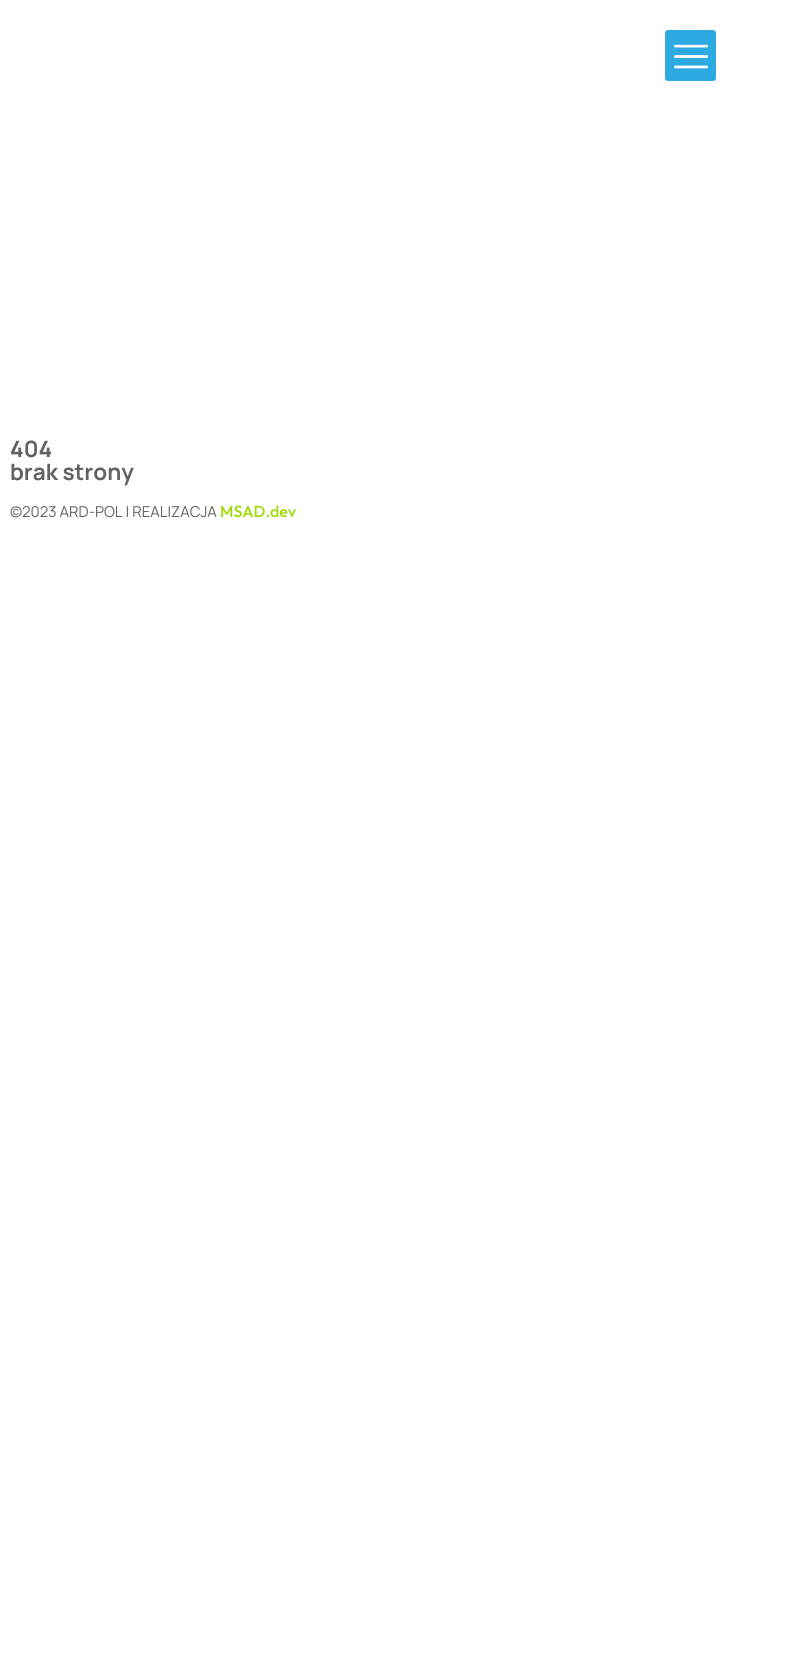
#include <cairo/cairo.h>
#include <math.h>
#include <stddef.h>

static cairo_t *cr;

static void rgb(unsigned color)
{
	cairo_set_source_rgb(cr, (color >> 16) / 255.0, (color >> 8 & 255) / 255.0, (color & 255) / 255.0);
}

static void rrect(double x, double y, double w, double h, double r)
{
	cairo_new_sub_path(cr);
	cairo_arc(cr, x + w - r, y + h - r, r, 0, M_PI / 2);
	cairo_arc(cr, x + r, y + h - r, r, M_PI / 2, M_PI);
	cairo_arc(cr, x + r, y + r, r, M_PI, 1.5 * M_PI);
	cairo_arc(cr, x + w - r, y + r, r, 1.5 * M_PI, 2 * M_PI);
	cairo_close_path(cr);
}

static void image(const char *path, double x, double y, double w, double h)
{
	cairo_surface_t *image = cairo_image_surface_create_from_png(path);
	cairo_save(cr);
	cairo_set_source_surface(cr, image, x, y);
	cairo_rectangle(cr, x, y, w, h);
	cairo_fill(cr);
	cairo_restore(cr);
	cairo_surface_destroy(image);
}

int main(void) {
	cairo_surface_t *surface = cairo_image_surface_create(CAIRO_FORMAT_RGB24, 786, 1655);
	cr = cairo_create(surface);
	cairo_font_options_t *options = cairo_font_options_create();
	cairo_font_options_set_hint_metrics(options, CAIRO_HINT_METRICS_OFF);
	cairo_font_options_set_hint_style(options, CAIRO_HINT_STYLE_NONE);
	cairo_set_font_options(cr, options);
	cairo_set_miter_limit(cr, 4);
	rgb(0xffffff);
	cairo_paint(cr);
	rgb(0x2daae1);
	rrect(665, 30, 51, 51, 3);
	cairo_fill(cr);
	image("img/1.png", 674, 44, 34, 25);
	cairo_select_font_face(cr, "Manrope", CAIRO_FONT_SLANT_NORMAL, CAIRO_FONT_WEIGHT_BOLD);
	cairo_set_font_size(cr, 22.5);
	rgb(0x626262);
	cairo_move_to(cr, 10, 457);
	cairo_show_text(cr, "404");
	cairo_move_to(cr, 10, 480);
	cairo_show_text(cr, "brak strony");
	cairo_select_font_face(cr, "Manrope", CAIRO_FONT_SLANT_NORMAL, CAIRO_FONT_WEIGHT_NORMAL);
	cairo_set_font_size(cr, 15);
	cairo_move_to(cr, 10, 517);
	cairo_show_text(cr, "©2023 ARD-POL | REALIZACJA");
	cairo_select_font_face(cr, "Outfit Medium", CAIRO_FONT_SLANT_NORMAL, CAIRO_FONT_WEIGHT_NORMAL);
	cairo_set_font_size(cr, 16);
	rgb(0x9eda04);
	cairo_move_to(cr, 220, 517);
	cairo_show_text(cr, "MSAD.dev");
	cairo_surface_write_to_png(surface, "page.png");
	cairo_font_options_destroy(options);
	cairo_destroy(cr);
	cairo_surface_destroy(surface);
	return 0;
}
